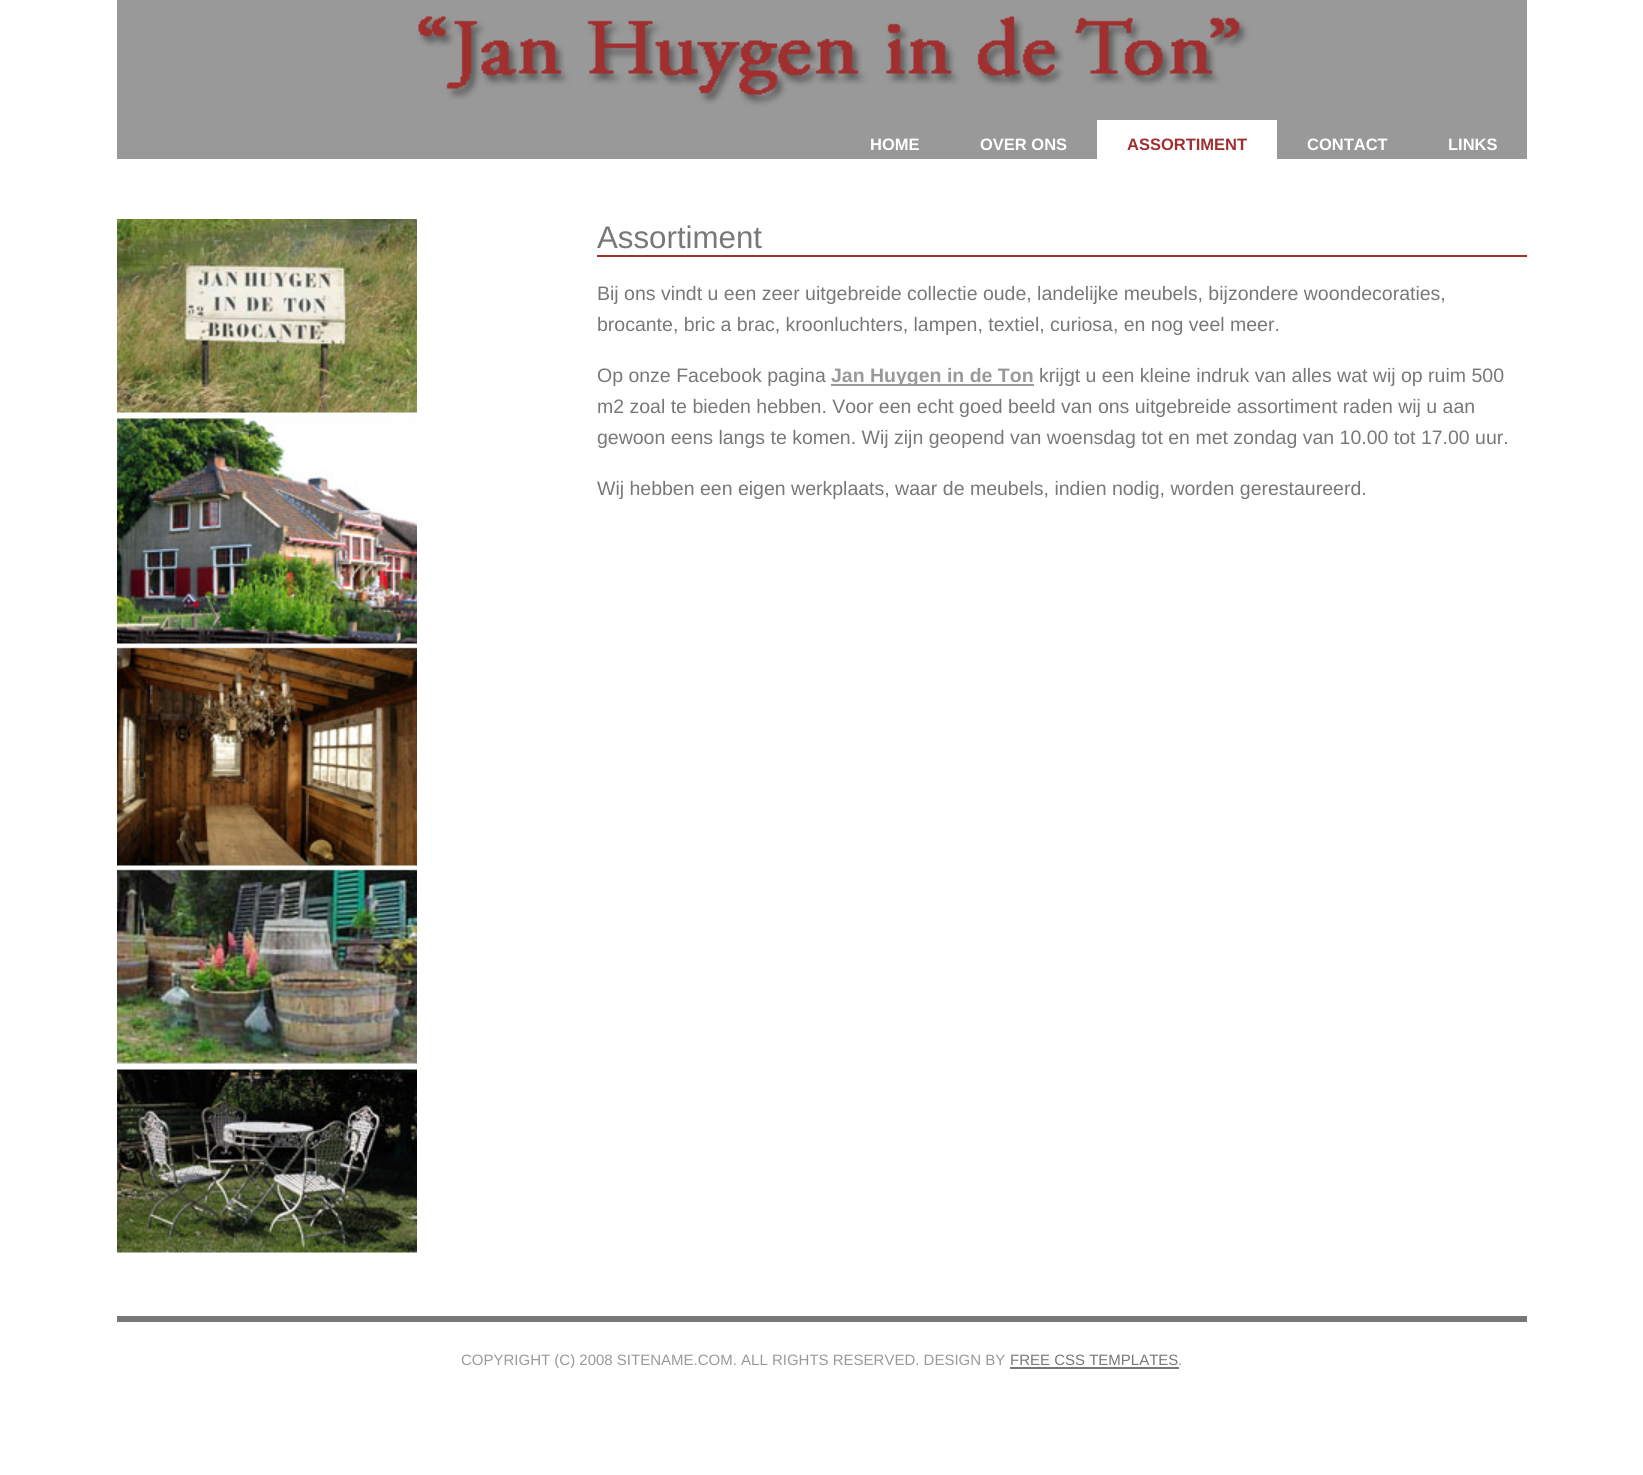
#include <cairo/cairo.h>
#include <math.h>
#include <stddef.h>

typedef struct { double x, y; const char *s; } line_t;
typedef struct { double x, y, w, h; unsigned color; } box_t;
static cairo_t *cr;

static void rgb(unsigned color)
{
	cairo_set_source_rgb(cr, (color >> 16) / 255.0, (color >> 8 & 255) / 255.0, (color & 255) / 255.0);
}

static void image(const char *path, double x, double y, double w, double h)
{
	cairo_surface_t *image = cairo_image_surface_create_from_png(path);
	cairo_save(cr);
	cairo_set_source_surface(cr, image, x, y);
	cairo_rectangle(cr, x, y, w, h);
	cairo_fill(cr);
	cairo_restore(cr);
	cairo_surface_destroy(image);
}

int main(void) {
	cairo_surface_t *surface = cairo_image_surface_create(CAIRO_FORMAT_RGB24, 1643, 1475);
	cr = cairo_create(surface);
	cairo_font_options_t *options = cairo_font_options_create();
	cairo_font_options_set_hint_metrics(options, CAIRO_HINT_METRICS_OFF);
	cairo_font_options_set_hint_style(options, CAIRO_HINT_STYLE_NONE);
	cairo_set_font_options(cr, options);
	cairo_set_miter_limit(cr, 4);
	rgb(0xffffff);
	cairo_paint(cr);
	image("img/1.png", 117, 0, 1410, 120);
	rgb(0x999999);
	cairo_rectangle(cr, 117, 120, 1410, 39);
	cairo_fill(cr);
	rgb(0xffffff);
	cairo_rectangle(cr, 1097, 120, 180, 39);
	cairo_fill(cr);
	image("img/2.png", 117, 219, 300, 1034);
	{
		static const box_t items[] = {
			{597, 255, 930, 2, 0xa03030},
			{831, 384, 203, 2, 0x999999},
			{117, 1316, 1410, 6, 0x787878},
			{1010, 1367, 169, 2, 0x787878},
		};
		for (size_t i = 0; i < sizeof items / sizeof *items; i++) {
			rgb(items[i].color);
			cairo_rectangle(cr, items[i].x, items[i].y, items[i].w, items[i].h);
			cairo_fill(cr);
		}
	}
	cairo_select_font_face(cr, "Liberation Sans", CAIRO_FONT_SLANT_NORMAL, CAIRO_FONT_WEIGHT_BOLD);
	cairo_set_font_size(cr, 16.5);
	rgb(0xffffff);
	cairo_move_to(cr, 870, 150);
	cairo_show_text(cr, "HOME");
	cairo_move_to(cr, 980, 150);
	cairo_show_text(cr, "OVER ONS");
	rgb(0xa03030);
	cairo_move_to(cr, 1127, 150);
	cairo_show_text(cr, "ASSORTIMENT");
	rgb(0xffffff);
	cairo_move_to(cr, 1307, 150);
	cairo_show_text(cr, "CONTACT");
	cairo_move_to(cr, 1448, 150);
	cairo_show_text(cr, "LINKS");
	cairo_select_font_face(cr, "Liberation Sans", CAIRO_FONT_SLANT_NORMAL, CAIRO_FONT_WEIGHT_NORMAL);
	cairo_set_font_size(cr, 31.25);
	rgb(0x787878);
	cairo_move_to(cr, 597, 248);
	cairo_show_text(cr, "Assortiment");
	cairo_set_font_size(cr, 19.5);
	{
		static const line_t items[] = {
			{597, 300, "Bij ons vindt u een zeer uitgebreide collectie oude, landelijke meubels, bijzondere woondecoraties,"},
			{597, 331, "brocante, bric a brac, kroonluchters, lampen, textiel, curiosa, en nog veel meer."},
			{597, 382, "Op onze Facebook pagina"},
		};
		for (size_t i = 0; i < sizeof items / sizeof *items; i++) {
			cairo_move_to(cr, items[i].x, items[i].y);
			cairo_show_text(cr, items[i].s);
		}
	}
	cairo_select_font_face(cr, "Liberation Sans", CAIRO_FONT_SLANT_NORMAL, CAIRO_FONT_WEIGHT_BOLD);
	rgb(0x999999);
	cairo_move_to(cr, 831, 382);
	cairo_show_text(cr, "Jan Huygen in de Ton");
	cairo_select_font_face(cr, "Liberation Sans", CAIRO_FONT_SLANT_NORMAL, CAIRO_FONT_WEIGHT_NORMAL);
	rgb(0x787878);
	{
		static const line_t items[] = {
			{1039, 382, "krijgt u een kleine indruk van alles wat wij op ruim 500"},
			{597, 413, "m2 zoal te bieden hebben. Voor een echt goed beeld van ons uitgebreide assortiment raden wij u aan"},
			{597, 444, "gewoon eens langs te komen. Wij zijn geopend van woensdag tot en met zondag van 10.00 tot 17.00 uur."},
			{597, 495, "Wij hebben een eigen werkplaats, waar de meubels, indien nodig, worden gerestaureerd."},
		};
		for (size_t i = 0; i < sizeof items / sizeof *items; i++) {
			cairo_move_to(cr, items[i].x, items[i].y);
			cairo_show_text(cr, items[i].s);
		}
	}
	cairo_set_font_size(cr, 15);
	rgb(0x999999);
	cairo_move_to(cr, 461, 1365);
	cairo_show_text(cr, "COPYRIGHT (C) 2008 SITENAME.COM. ALL RIGHTS RESERVED. DESIGN BY");
	rgb(0x787878);
	cairo_move_to(cr, 1010, 1365);
	cairo_show_text(cr, "FREE CSS TEMPLATES");
	rgb(0x999999);
	cairo_move_to(cr, 1178, 1365);
	cairo_show_text(cr, ".");
	cairo_surface_write_to_png(surface, "page.png");
	cairo_font_options_destroy(options);
	cairo_destroy(cr);
	cairo_surface_destroy(surface);
	return 0;
}
